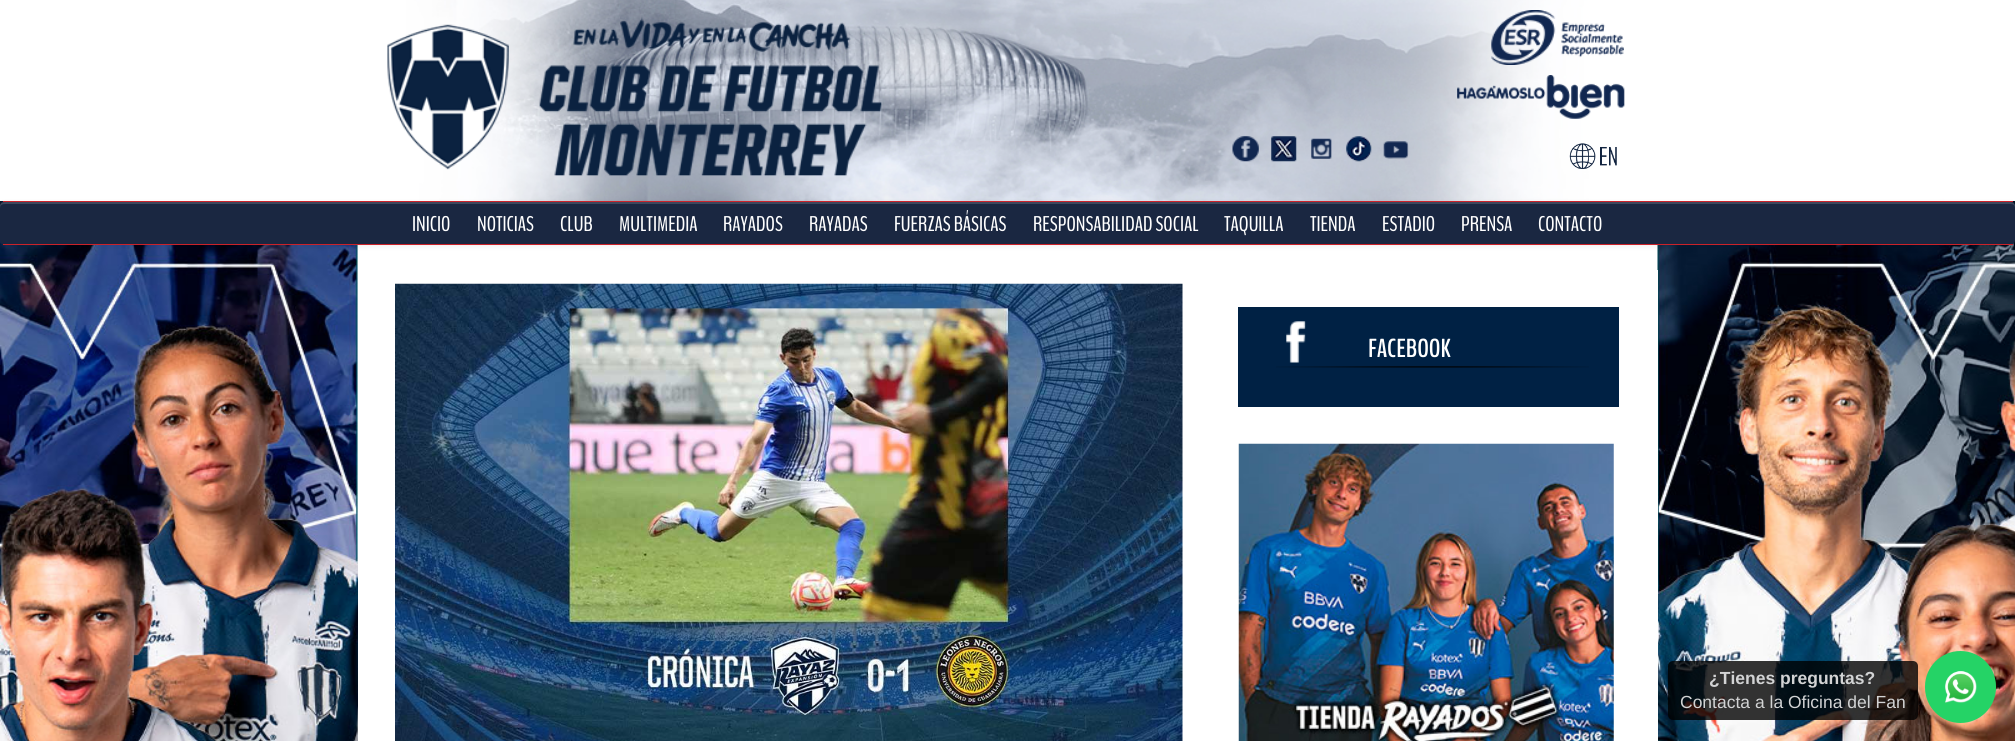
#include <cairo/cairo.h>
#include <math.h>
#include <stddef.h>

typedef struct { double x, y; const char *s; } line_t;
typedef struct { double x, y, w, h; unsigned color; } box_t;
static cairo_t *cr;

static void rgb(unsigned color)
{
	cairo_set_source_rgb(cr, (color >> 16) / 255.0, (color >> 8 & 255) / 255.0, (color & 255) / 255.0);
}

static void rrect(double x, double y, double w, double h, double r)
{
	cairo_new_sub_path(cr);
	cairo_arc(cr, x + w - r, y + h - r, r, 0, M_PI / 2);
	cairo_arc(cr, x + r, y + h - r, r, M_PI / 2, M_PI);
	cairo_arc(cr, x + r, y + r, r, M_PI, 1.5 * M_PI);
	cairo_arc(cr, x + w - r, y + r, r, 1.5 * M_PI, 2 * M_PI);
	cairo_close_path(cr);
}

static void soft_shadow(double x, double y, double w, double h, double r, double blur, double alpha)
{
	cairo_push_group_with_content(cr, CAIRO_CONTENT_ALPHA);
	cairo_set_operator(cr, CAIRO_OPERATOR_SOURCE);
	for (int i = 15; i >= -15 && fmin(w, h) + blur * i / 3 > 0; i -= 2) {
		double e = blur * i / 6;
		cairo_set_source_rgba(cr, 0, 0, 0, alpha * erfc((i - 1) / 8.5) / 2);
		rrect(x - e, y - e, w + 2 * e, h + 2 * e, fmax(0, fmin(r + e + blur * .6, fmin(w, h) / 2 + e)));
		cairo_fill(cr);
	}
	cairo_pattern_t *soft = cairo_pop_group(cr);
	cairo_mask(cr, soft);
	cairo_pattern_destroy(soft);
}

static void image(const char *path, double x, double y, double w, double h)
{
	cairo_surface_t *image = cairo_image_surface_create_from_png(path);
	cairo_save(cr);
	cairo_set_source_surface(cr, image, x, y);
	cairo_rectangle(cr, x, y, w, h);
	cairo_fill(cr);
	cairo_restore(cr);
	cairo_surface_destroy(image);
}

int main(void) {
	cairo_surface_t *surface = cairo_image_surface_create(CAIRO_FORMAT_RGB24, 2015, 741);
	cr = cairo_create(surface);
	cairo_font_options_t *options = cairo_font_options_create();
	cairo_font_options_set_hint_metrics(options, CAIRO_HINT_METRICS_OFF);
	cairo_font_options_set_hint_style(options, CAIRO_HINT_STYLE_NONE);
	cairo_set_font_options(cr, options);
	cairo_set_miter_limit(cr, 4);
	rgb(0xffffff);
	cairo_paint(cr);
	image("img/1.png", 0, 201, 2015, 540);
	image("img/2.png", 70, 0, 1875, 201);
	image("img/3.png", 387, 17, 495, 159);
	image("img/4.png", 1232, 136, 27, 26);
	image("img/5.png", 1271, 136, 26, 26);
	image("img/6.png", 1311, 138, 21, 21);
	image("img/7.png", 1346, 136, 26, 26);
	image("img/8.png", 1383, 141, 26, 18);
	image("img/9.png", 1491, 10, 133, 55);
	image("img/10.png", 1457, 75, 168, 44);
	image("img/11.png", 1569, 143, 48, 26);
	rgb(0x000000);
	soft_shadow(0, 203, 2015, 43, 5, 3, 0.07);
	rgb(0x1a2741);
	rrect(0, 201, 2015, 44, 5);
	cairo_fill(cr);
	cairo_set_source_rgba(cr, 1, 1, 1, 0.15);
	cairo_new_path(cr);
	cairo_move_to(cr, 5, 204);
	cairo_line_to(cr, 2010, 204);
	cairo_curve_to(cr, 2013, 204, 2015, 205, 2015, 208);
	cairo_line_to(cr, 2015, 206);
	cairo_curve_to(cr, 2015, 204, 2013, 202, 2010, 202);
	cairo_line_to(cr, 5, 202);
	cairo_curve_to(cr, 2, 202, 0, 204, 0, 206);
	cairo_line_to(cr, 0, 208);
	cairo_curve_to(cr, 0, 205, 2, 204, 5, 204);
	cairo_close_path(cr);
	cairo_fill(cr);
	{
		static const box_t items[] = {
			{3, 201, 2010, 1, 0xcc2229},
			{3, 244, 2010, 1, 0xcc2229},
			{358, 270, 1300, 471, 0xffffff},
		};
		for (size_t i = 0; i < sizeof items / sizeof *items; i++) {
			rgb(items[i].color);
			cairo_rectangle(cr, items[i].x, items[i].y, items[i].w, items[i].h);
			cairo_fill(cr);
		}
	}
	image("img/12.png", 395, 283, 788, 458);
	rgb(0x002144);
	cairo_rectangle(cr, 1238, 307, 381, 100);
	cairo_fill(cr);
	image("img/13.png", 1276, 366, 313, 2);
	image("img/14.png", 1286, 321, 20, 42);
	image("img/15.png", 1238, 443, 376, 298);
	cairo_set_source_rgba(cr, 0, 0, 0, 0.8);
	rrect(1668, 661, 250, 59, 5);
	cairo_fill(cr);
	rgb(0x25d366);
	rrect(1925, 651, 71, 72, 35.5);
	cairo_fill(cr);
	image("img/16.png", 1945, 671, 32, 32);
	cairo_select_font_face(cr, "BenchNine", CAIRO_FONT_SLANT_NORMAL, CAIRO_FONT_WEIGHT_NORMAL);
	cairo_set_font_size(cr, 21.25);
	rgb(0xffffff);
	{
		static const line_t items[] = {
			{412, 231, "INICIO"},
			{477, 231, "NOTICIAS"},
			{560, 231, "CLUB"},
			{619, 231, "MULTIMEDIA"},
			{723, 231, "RAYADOS"},
			{809, 231, "RAYADAS"},
			{894, 231, "FUERZAS BÁSICAS"},
			{1033, 231, "RESPONSABILIDAD SOCIAL"},
			{1224, 231, "TAQUILLA"},
			{1310, 231, "TIENDA"},
			{1382, 231, "ESTADIO"},
			{1461, 231, "PRENSA"},
			{1538, 231, "CONTACTO"},
		};
		for (size_t i = 0; i < sizeof items / sizeof *items; i++) {
			cairo_move_to(cr, items[i].x, items[i].y);
			cairo_show_text(cr, items[i].s);
		}
	}
	cairo_select_font_face(cr, "BenchNine", CAIRO_FONT_SLANT_NORMAL, CAIRO_FONT_WEIGHT_BOLD);
	cairo_set_font_size(cr, 26);
	cairo_move_to(cr, 1368, 357);
	cairo_show_text(cr, "FACEBOOK");
	cairo_select_font_face(cr, "Liberation Sans", CAIRO_FONT_SLANT_NORMAL, CAIRO_FONT_WEIGHT_BOLD);
	cairo_set_font_size(cr, 17.5);
	rgb(0xd2d3d4);
	cairo_move_to(cr, 1709, 684);
	cairo_show_text(cr, "¿Tienes preguntas?");
	cairo_select_font_face(cr, "Liberation Sans", CAIRO_FONT_SLANT_NORMAL, CAIRO_FONT_WEIGHT_NORMAL);
	cairo_move_to(cr, 1680, 708);
	cairo_show_text(cr, "Contacta a la Oficina del Fan");
	cairo_surface_write_to_png(surface, "page.png");
	cairo_font_options_destroy(options);
	cairo_destroy(cr);
	cairo_surface_destroy(surface);
	return 0;
}
